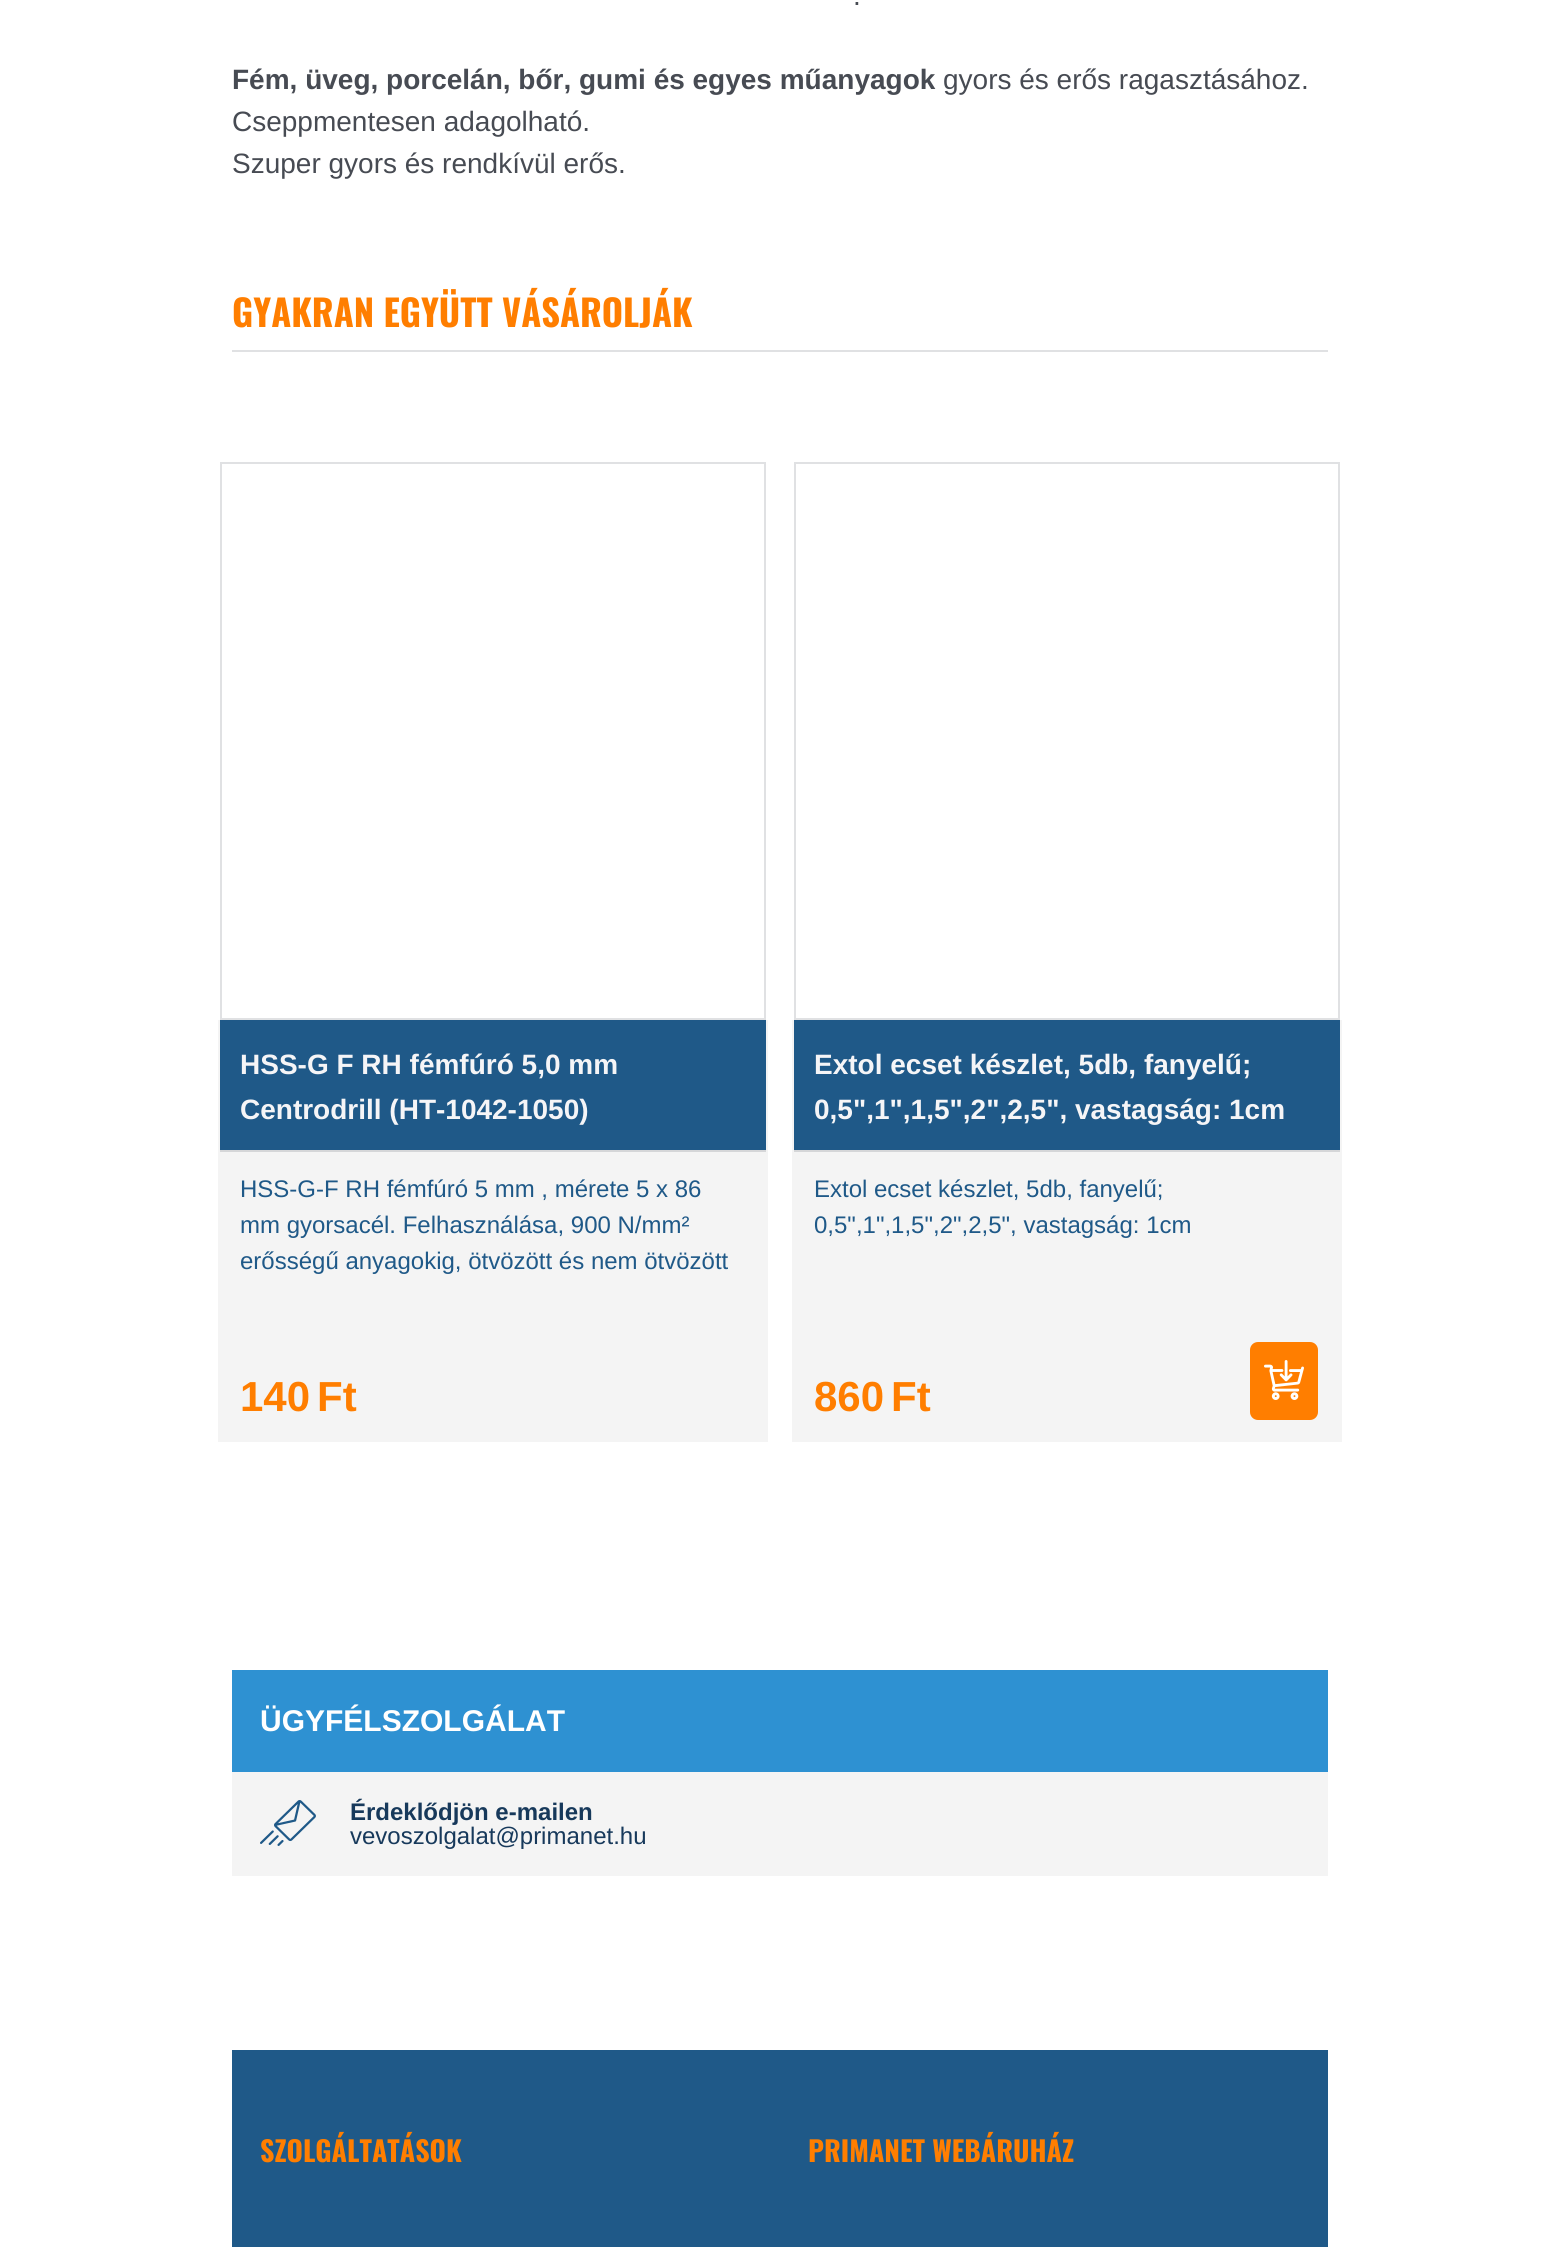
#include <cairo/cairo.h>
#include <math.h>
#include <stddef.h>

typedef struct { double x, y; const char *s; } line_t;
typedef struct { double x, y, w, h; unsigned color; } box_t;
static cairo_t *cr;

static void rgb(unsigned color)
{
	cairo_set_source_rgb(cr, (color >> 16) / 255.0, (color >> 8 & 255) / 255.0, (color & 255) / 255.0);
}

static void rrect(double x, double y, double w, double h, double r)
{
	cairo_new_sub_path(cr);
	cairo_arc(cr, x + w - r, y + h - r, r, 0, M_PI / 2);
	cairo_arc(cr, x + r, y + h - r, r, M_PI / 2, M_PI);
	cairo_arc(cr, x + r, y + r, r, M_PI, 1.5 * M_PI);
	cairo_arc(cr, x + w - r, y + r, r, 1.5 * M_PI, 2 * M_PI);
	cairo_close_path(cr);
}

static void image(const char *path, double x, double y, double w, double h)
{
	cairo_surface_t *image = cairo_image_surface_create_from_png(path);
	cairo_save(cr);
	cairo_set_source_surface(cr, image, x, y);
	cairo_rectangle(cr, x, y, w, h);
	cairo_fill(cr);
	cairo_restore(cr);
	cairo_surface_destroy(image);
}

int main(void) {
	cairo_surface_t *surface = cairo_image_surface_create(CAIRO_FORMAT_RGB24, 1559, 2247);
	cr = cairo_create(surface);
	cairo_font_options_t *options = cairo_font_options_create();
	cairo_font_options_set_hint_metrics(options, CAIRO_HINT_METRICS_OFF);
	cairo_font_options_set_hint_style(options, CAIRO_HINT_STYLE_NONE);
	cairo_set_font_options(cr, options);
	cairo_set_miter_limit(cr, 4);
	rgb(0xffffff);
	cairo_paint(cr);
	rgb(0xe0e1e3);
	cairo_rectangle(cr, 232, 350, 1096, 2);
	cairo_fill(cr);
	cairo_rectangle(cr, 221, 463, 544, 556);
	cairo_stroke(cr);
	{
		static const box_t items[] = {
			{218, 1020, 550, 422, 0xf4f4f4},
			{220, 1020, 546, 130, 0x1f5988},
			{220, 1150, 546, 2, 0xd5d6d8},
		};
		for (size_t i = 0; i < sizeof items / sizeof *items; i++) {
			rgb(items[i].color);
			cairo_rectangle(cr, items[i].x, items[i].y, items[i].w, items[i].h);
			cairo_fill(cr);
		}
	}
	cairo_rectangle(cr, 795, 463, 544, 556);
	rgb(0xe0e1e3);
	cairo_stroke(cr);
	{
		static const box_t items[] = {
			{792, 1020, 550, 422, 0xf4f4f4},
			{794, 1020, 546, 130, 0x1f5988},
			{794, 1150, 546, 2, 0xd5d6d8},
		};
		for (size_t i = 0; i < sizeof items / sizeof *items; i++) {
			rgb(items[i].color);
			cairo_rectangle(cr, items[i].x, items[i].y, items[i].w, items[i].h);
			cairo_fill(cr);
		}
	}
	rgb(0xff7e00);
	rrect(1250, 1342, 68, 78, 8);
	cairo_fill(cr);
	image("img/1.png", 1264, 1360, 40, 40);
	rgb(0xf4f4f4);
	cairo_rectangle(cr, 232, 1772, 1096, 104);
	cairo_fill(cr);
	rgb(0x2e91d2);
	cairo_rectangle(cr, 232, 1670, 1096, 102);
	cairo_fill(cr);
	image("img/2.png", 260, 1800, 56, 46);
	rgb(0x1f5988);
	cairo_rectangle(cr, 232, 2050, 1096, 197);
	cairo_fill(cr);
	cairo_select_font_face(cr, "Liberation Sans", CAIRO_FONT_SLANT_NORMAL, CAIRO_FONT_WEIGHT_NORMAL);
	cairo_set_font_size(cr, 28);
	rgb(0x474b53);
	cairo_move_to(cr, 853, 5);
	cairo_show_text(cr, ".");
	cairo_select_font_face(cr, "Liberation Sans", CAIRO_FONT_SLANT_NORMAL, CAIRO_FONT_WEIGHT_BOLD);
	cairo_move_to(cr, 232, 89);
	cairo_show_text(cr, "Fém, üveg, porcelán, bőr, gumi és egyes műanyagok");
	cairo_select_font_face(cr, "Liberation Sans", CAIRO_FONT_SLANT_NORMAL, CAIRO_FONT_WEIGHT_NORMAL);
	{
		static const line_t items[] = {
			{943, 89, "gyors és erős ragasztásához."},
			{232, 131, "Cseppmentesen adagolható."},
			{232, 173, "Szuper gyors és rendkívül erős."},
		};
		for (size_t i = 0; i < sizeof items / sizeof *items; i++) {
			cairo_move_to(cr, items[i].x, items[i].y);
			cairo_show_text(cr, items[i].s);
		}
	}
	cairo_select_font_face(cr, "Oswald", CAIRO_FONT_SLANT_NORMAL, CAIRO_FONT_WEIGHT_BOLD);
	cairo_set_font_size(cr, 36.4);
	rgb(0xff7e00);
	cairo_move_to(cr, 232, 327);
	cairo_show_text(cr, "GYAKRAN EGYÜTT VÁSÁROLJÁK");
	cairo_select_font_face(cr, "Liberation Sans", CAIRO_FONT_SLANT_NORMAL, CAIRO_FONT_WEIGHT_BOLD);
	cairo_set_font_size(cr, 28);
	rgb(0xf5f5f7);
	cairo_move_to(cr, 240, 1074);
	cairo_show_text(cr, "HSS-G F RH fémfúró 5,0 mm");
	cairo_move_to(cr, 240, 1119);
	cairo_show_text(cr, "Centrodrill (HT-1042-1050)");
	cairo_select_font_face(cr, "Liberation Sans", CAIRO_FONT_SLANT_NORMAL, CAIRO_FONT_WEIGHT_NORMAL);
	cairo_set_font_size(cr, 24);
	rgb(0x1f5988);
	{
		static const line_t items[] = {
			{240, 1197, "HSS-G-F RH fémfúró 5 mm , mérete 5 x 86"},
			{240, 1233, "mm gyorsacél. Felhasználása, 900 N/mm²"},
			{240, 1269, "erősségű anyagokig, ötvözött és nem ötvözött"},
		};
		for (size_t i = 0; i < sizeof items / sizeof *items; i++) {
			cairo_move_to(cr, items[i].x, items[i].y);
			cairo_show_text(cr, items[i].s);
		}
	}
	cairo_select_font_face(cr, "Liberation Sans", CAIRO_FONT_SLANT_NORMAL, CAIRO_FONT_WEIGHT_BOLD);
	cairo_set_font_size(cr, 42);
	rgb(0xff7e00);
	cairo_move_to(cr, 240, 1411);
	cairo_show_text(cr, "140");
	cairo_move_to(cr, 317, 1411);
	cairo_show_text(cr, "Ft");
	cairo_set_font_size(cr, 28);
	rgb(0xf5f5f7);
	cairo_move_to(cr, 814, 1074);
	cairo_show_text(cr, "Extol ecset készlet, 5db, fanyelű;");
	cairo_move_to(cr, 814, 1119);
	cairo_show_text(cr, "0,5\",1\",1,5\",2\",2,5\", vastagság: 1cm");
	cairo_select_font_face(cr, "Liberation Sans", CAIRO_FONT_SLANT_NORMAL, CAIRO_FONT_WEIGHT_NORMAL);
	cairo_set_font_size(cr, 24);
	rgb(0x1f5988);
	cairo_move_to(cr, 814, 1197);
	cairo_show_text(cr, "Extol ecset készlet, 5db, fanyelű;");
	cairo_move_to(cr, 814, 1233);
	cairo_show_text(cr, "0,5\",1\",1,5\",2\",2,5\", vastagság: 1cm");
	cairo_select_font_face(cr, "Liberation Sans", CAIRO_FONT_SLANT_NORMAL, CAIRO_FONT_WEIGHT_BOLD);
	cairo_set_font_size(cr, 42);
	rgb(0xff7e00);
	cairo_move_to(cr, 814, 1411);
	cairo_show_text(cr, "860");
	cairo_move_to(cr, 891, 1411);
	cairo_show_text(cr, "Ft");
	cairo_set_font_size(cr, 30);
	rgb(0xffffff);
	cairo_move_to(cr, 260, 1731);
	cairo_show_text(cr, "ÜGYFÉLSZOLGÁLAT");
	cairo_set_font_size(cr, 24);
	rgb(0x17395b);
	cairo_move_to(cr, 350, 1820);
	cairo_show_text(cr, "Érdeklődjön e-mailen");
	cairo_select_font_face(cr, "Liberation Sans", CAIRO_FONT_SLANT_NORMAL, CAIRO_FONT_WEIGHT_NORMAL);
	cairo_move_to(cr, 350, 1844);
	cairo_show_text(cr, "vevoszolgalat@primanet.hu");
	cairo_select_font_face(cr, "Oswald", CAIRO_FONT_SLANT_NORMAL, CAIRO_FONT_WEIGHT_BOLD);
	cairo_set_font_size(cr, 28);
	rgb(0xff7e00);
	cairo_move_to(cr, 260, 2162);
	cairo_show_text(cr, "SZOLGÁLTATÁSOK");
	cairo_move_to(cr, 808, 2162);
	cairo_show_text(cr, "PRIMANET WEBÁRUHÁZ");
	cairo_surface_write_to_png(surface, "page.png");
	cairo_font_options_destroy(options);
	cairo_destroy(cr);
	cairo_surface_destroy(surface);
	return 0;
}
